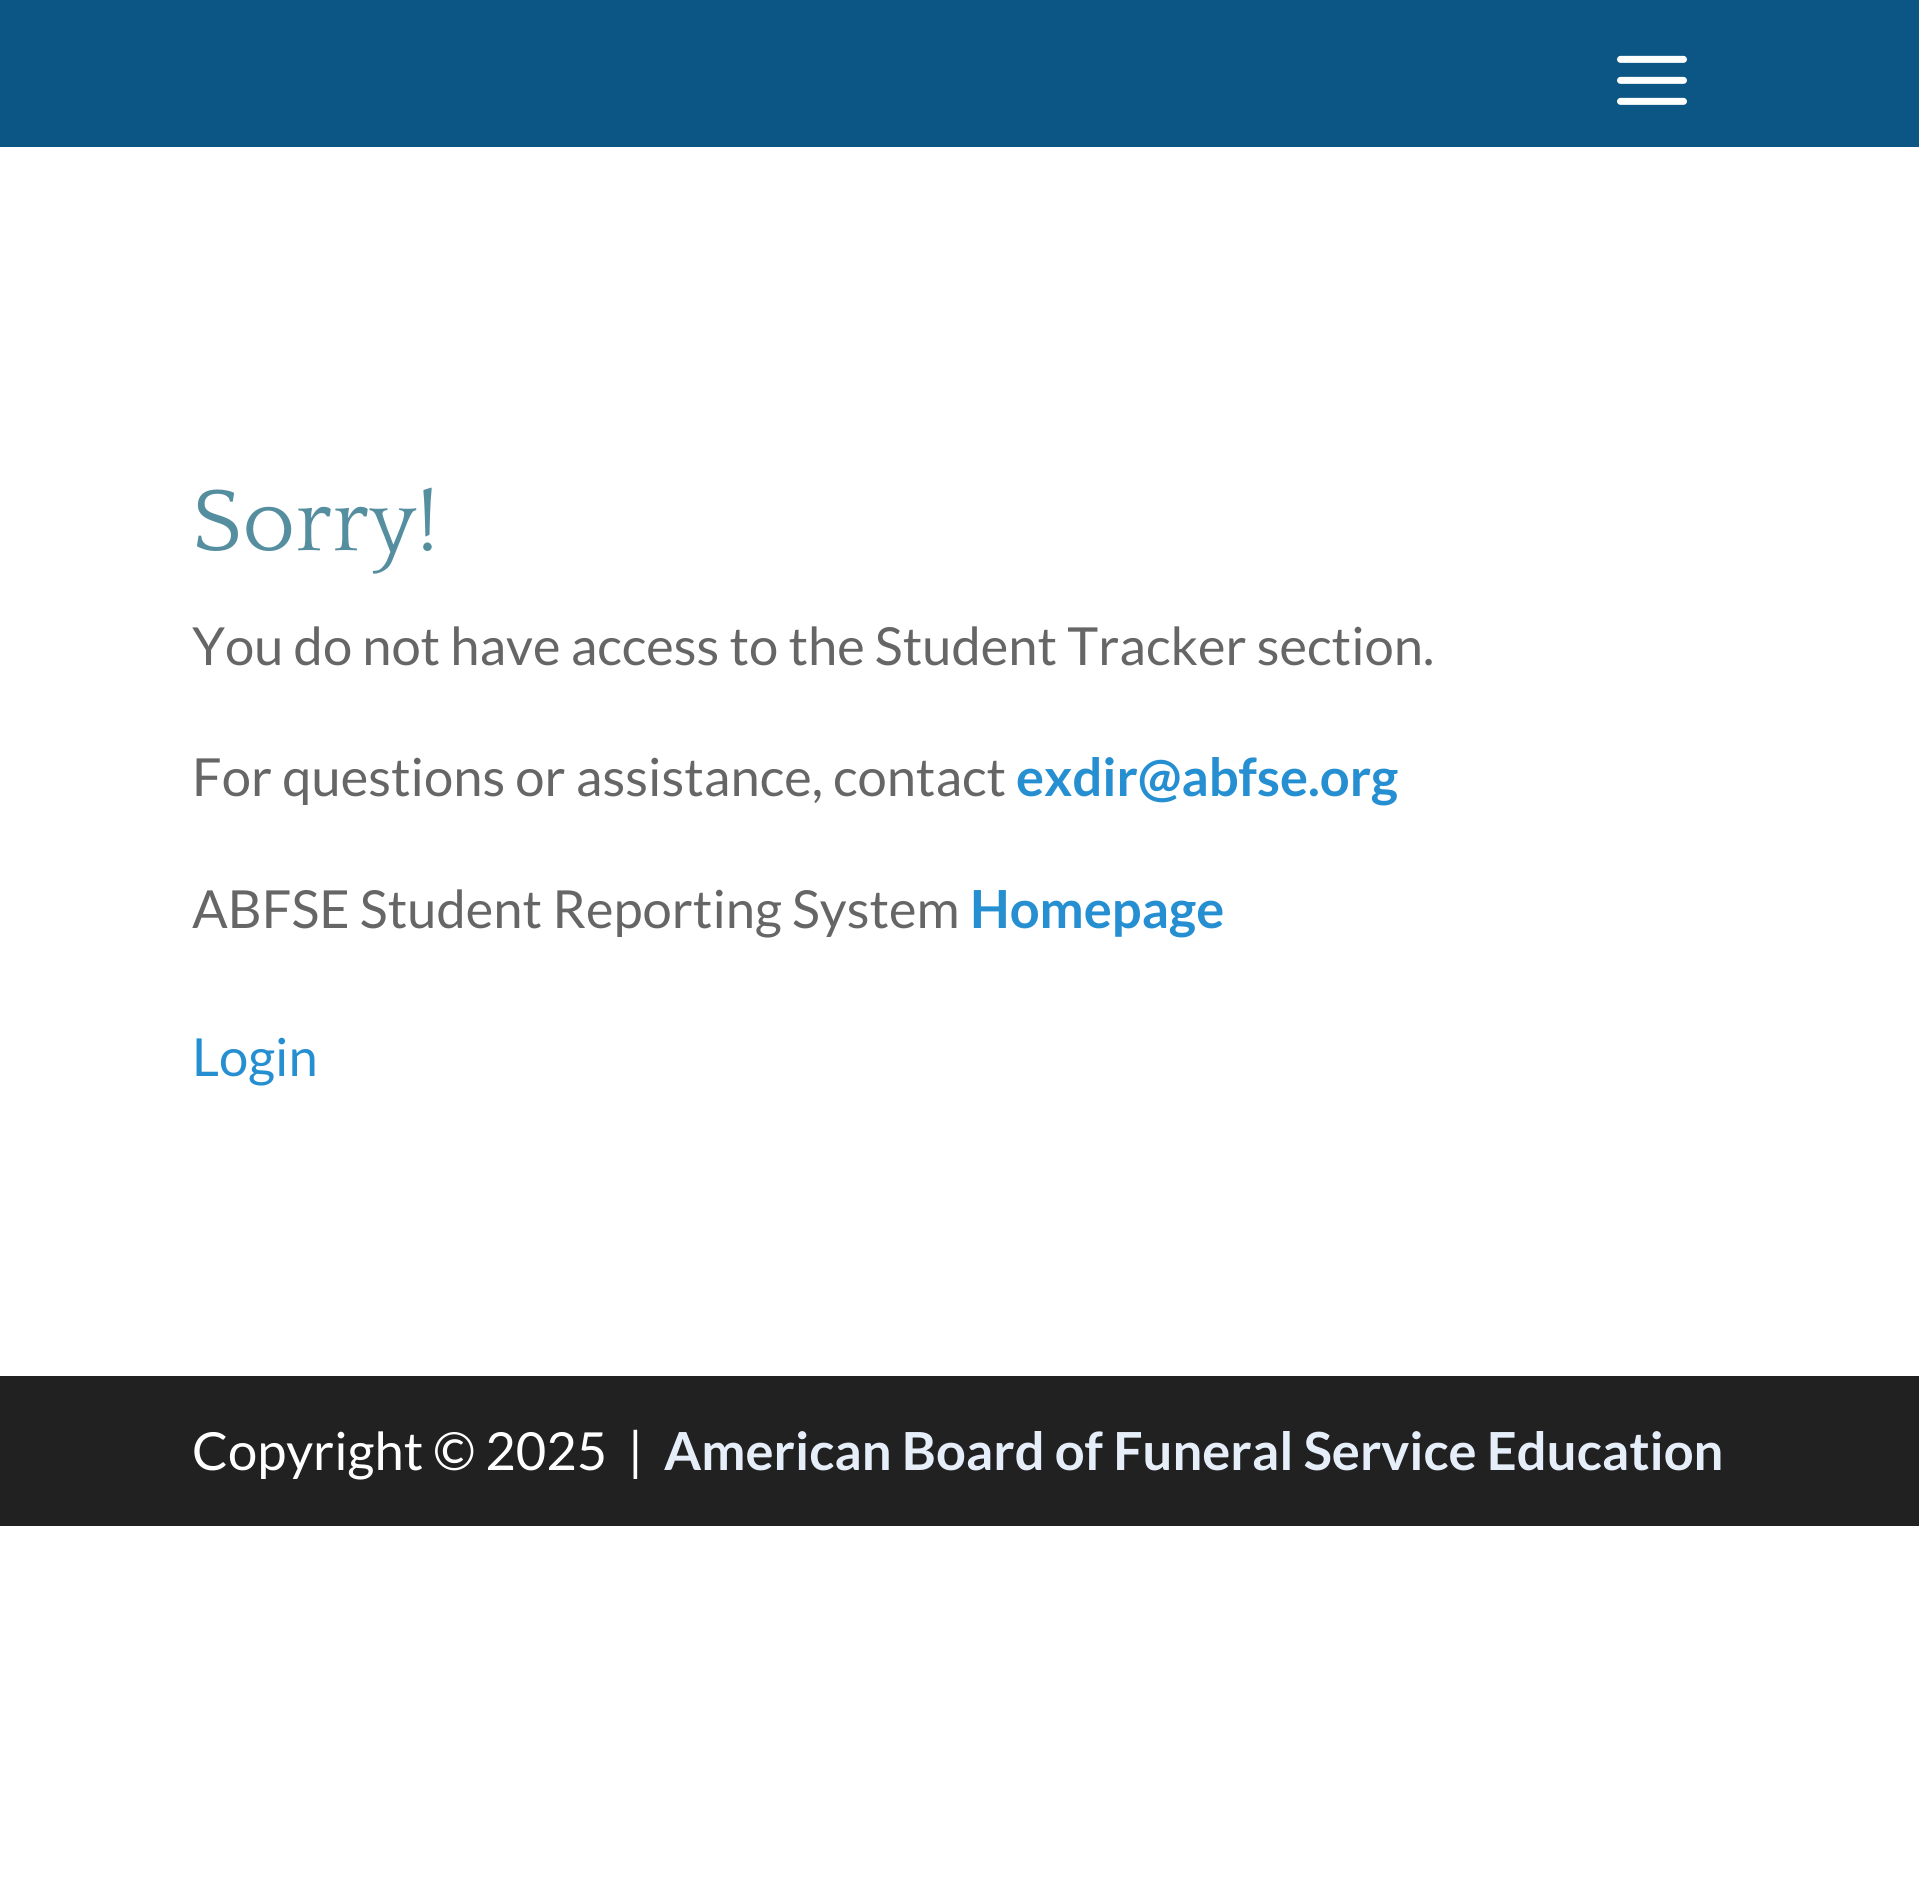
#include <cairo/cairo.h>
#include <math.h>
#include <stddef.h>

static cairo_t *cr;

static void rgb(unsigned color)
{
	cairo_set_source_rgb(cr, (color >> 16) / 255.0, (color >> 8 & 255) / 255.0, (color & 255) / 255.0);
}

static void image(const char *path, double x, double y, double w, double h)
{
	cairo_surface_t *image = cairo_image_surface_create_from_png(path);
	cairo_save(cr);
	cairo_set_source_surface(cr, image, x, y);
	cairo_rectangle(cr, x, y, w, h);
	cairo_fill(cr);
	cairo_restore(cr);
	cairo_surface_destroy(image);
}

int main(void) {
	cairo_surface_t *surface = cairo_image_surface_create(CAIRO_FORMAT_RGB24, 1919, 1880);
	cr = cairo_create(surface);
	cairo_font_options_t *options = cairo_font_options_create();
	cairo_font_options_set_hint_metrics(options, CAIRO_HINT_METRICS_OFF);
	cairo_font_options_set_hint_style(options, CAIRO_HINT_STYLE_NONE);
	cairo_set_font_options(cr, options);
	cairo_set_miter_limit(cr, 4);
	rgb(0xffffff);
	cairo_paint(cr);
	rgb(0x0b5685);
	cairo_rectangle(cr, 0, 0, 1919, 147);
	cairo_fill(cr);
	image("img/1.png", 1617, 55, 70, 50);
	rgb(0x212121);
	cairo_rectangle(cr, 0, 1376, 1919, 150);
	cairo_fill(cr);
	cairo_select_font_face(cr, "Quattrocento", CAIRO_FONT_SLANT_NORMAL, CAIRO_FONT_WEIGHT_NORMAL);
	cairo_set_font_size(cr, 91);
	rgb(0x558e9f);
	cairo_move_to(cr, 192, 550);
	cairo_show_text(cr, "Sorry!");
	cairo_select_font_face(cr, "Lato", CAIRO_FONT_SLANT_NORMAL, CAIRO_FONT_WEIGHT_NORMAL);
	cairo_set_font_size(cr, 52.5);
	rgb(0x666666);
	cairo_move_to(cr, 192, 665);
	cairo_show_text(cr, "You do not have access to the Student Tracker section.");
	cairo_move_to(cr, 192, 796);
	cairo_show_text(cr, "For questions or assistance, contact");
	cairo_select_font_face(cr, "Lato", CAIRO_FONT_SLANT_NORMAL, CAIRO_FONT_WEIGHT_BOLD);
	rgb(0x268fd1);
	cairo_move_to(cr, 1016, 796);
	cairo_show_text(cr, "exdir@abfse.org");
	cairo_select_font_face(cr, "Lato", CAIRO_FONT_SLANT_NORMAL, CAIRO_FONT_WEIGHT_NORMAL);
	rgb(0x666666);
	cairo_move_to(cr, 192, 928);
	cairo_show_text(cr, "ABFSE Student Reporting System");
	cairo_select_font_face(cr, "Lato", CAIRO_FONT_SLANT_NORMAL, CAIRO_FONT_WEIGHT_BOLD);
	rgb(0x268fd1);
	cairo_move_to(cr, 970, 928);
	cairo_show_text(cr, "Homepage");
	cairo_select_font_face(cr, "Lato", CAIRO_FONT_SLANT_NORMAL, CAIRO_FONT_WEIGHT_NORMAL);
	cairo_move_to(cr, 192, 1076);
	cairo_show_text(cr, "Login");
	rgb(0xffffff);
	cairo_move_to(cr, 192, 1470);
	cairo_show_text(cr, "Copyright © 2025  |");
	cairo_select_font_face(cr, "Lato", CAIRO_FONT_SLANT_NORMAL, CAIRO_FONT_WEIGHT_BOLD);
	rgb(0xe6eefa);
	cairo_move_to(cr, 664, 1470);
	cairo_show_text(cr, "American Board of Funeral Service Education");
	cairo_surface_write_to_png(surface, "page.png");
	cairo_font_options_destroy(options);
	cairo_destroy(cr);
	cairo_surface_destroy(surface);
	return 0;
}
